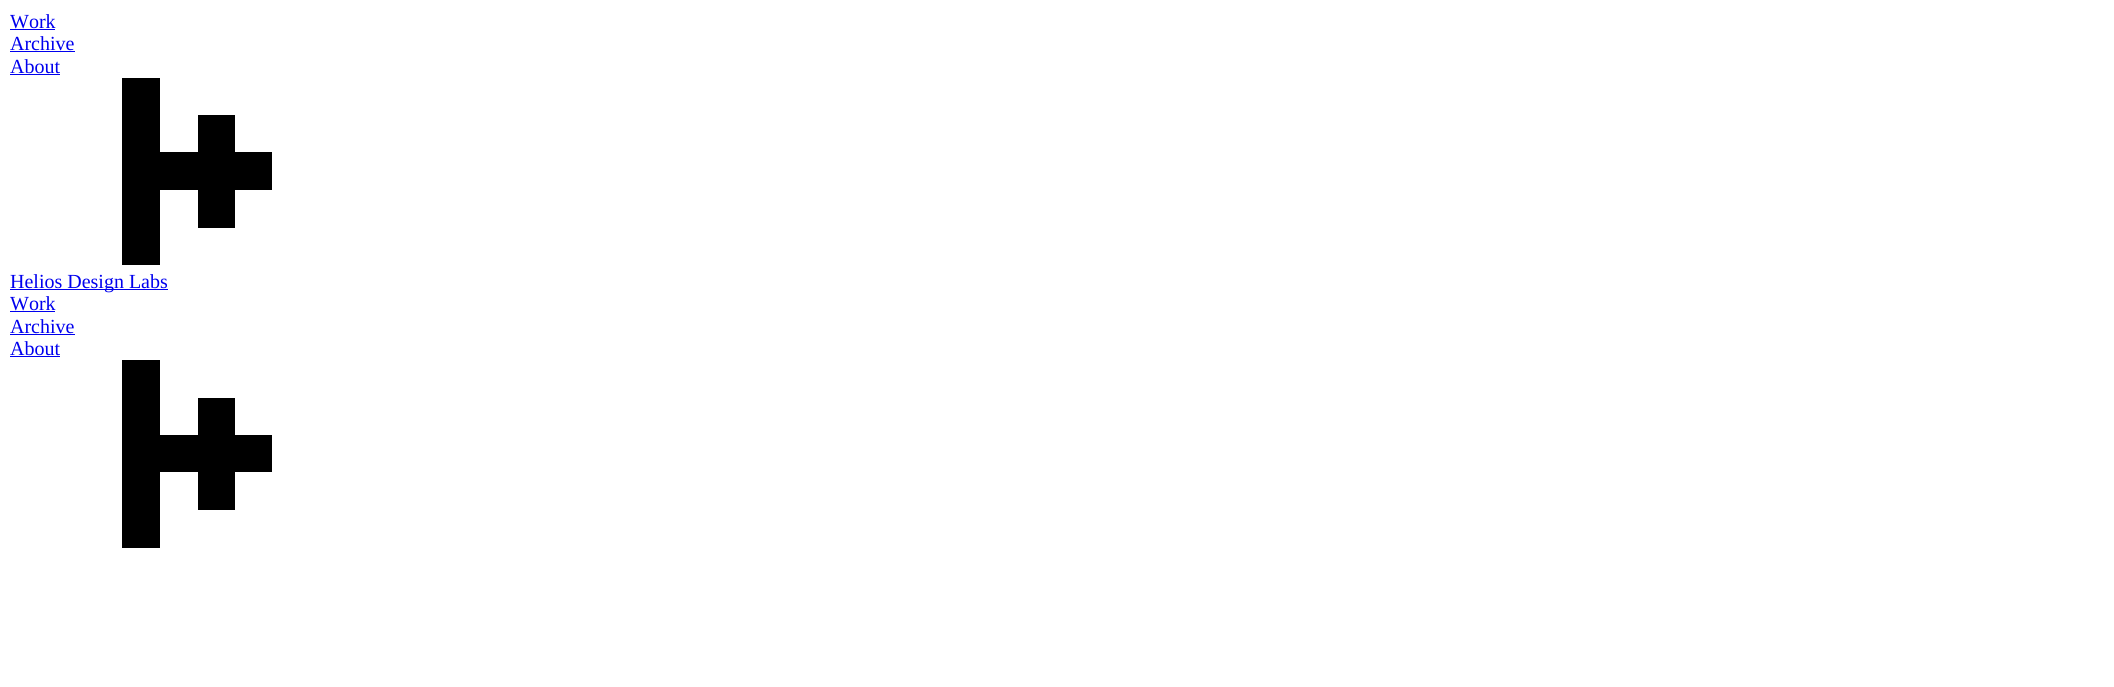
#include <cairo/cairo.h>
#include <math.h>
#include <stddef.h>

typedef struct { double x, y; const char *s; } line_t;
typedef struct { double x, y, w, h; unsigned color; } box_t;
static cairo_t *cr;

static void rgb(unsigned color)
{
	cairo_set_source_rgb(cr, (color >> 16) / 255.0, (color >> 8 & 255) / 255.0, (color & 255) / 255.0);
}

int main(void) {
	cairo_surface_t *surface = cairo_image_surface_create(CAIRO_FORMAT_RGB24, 2114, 687);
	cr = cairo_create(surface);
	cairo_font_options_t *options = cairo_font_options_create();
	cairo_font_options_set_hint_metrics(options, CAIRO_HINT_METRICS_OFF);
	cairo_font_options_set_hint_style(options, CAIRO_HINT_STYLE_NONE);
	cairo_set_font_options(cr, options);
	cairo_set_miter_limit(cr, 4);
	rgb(0xffffff);
	cairo_paint(cr);
	{
		static const box_t items[] = {
			{10, 29, 45, 1, 0x0000ee},
			{10, 51, 65, 1, 0x0000ee},
			{10, 74, 50, 1, 0x0000ee},
		};
		for (size_t i = 0; i < sizeof items / sizeof *items; i++) {
			rgb(items[i].color);
			cairo_rectangle(cr, items[i].x, items[i].y, items[i].w, items[i].h);
			cairo_fill(cr);
		}
	}
	rgb(0x000000);
	cairo_new_path(cr);
	cairo_move_to(cr, 235, 152);
	cairo_line_to(cr, 235, 115);
	cairo_line_to(cr, 198, 115);
	cairo_line_to(cr, 198, 152);
	cairo_line_to(cr, 160, 152);
	cairo_line_to(cr, 160, 78);
	cairo_line_to(cr, 122, 78);
	cairo_line_to(cr, 122, 265);
	cairo_line_to(cr, 160, 265);
	cairo_line_to(cr, 160, 190);
	cairo_line_to(cr, 198, 190);
	cairo_line_to(cr, 198, 228);
	cairo_line_to(cr, 235, 228);
	cairo_line_to(cr, 235, 190);
	cairo_line_to(cr, 272, 190);
	cairo_line_to(cr, 272, 152);
	cairo_close_path(cr);
	cairo_fill(cr);
	{
		static const box_t items[] = {
			{10, 289, 158, 1, 0x0000ee},
			{10, 311, 45, 1, 0x0000ee},
			{10, 334, 65, 1, 0x0000ee},
			{10, 356, 50, 1, 0x0000ee},
		};
		for (size_t i = 0; i < sizeof items / sizeof *items; i++) {
			rgb(items[i].color);
			cairo_rectangle(cr, items[i].x, items[i].y, items[i].w, items[i].h);
			cairo_fill(cr);
		}
	}
	rgb(0x000000);
	cairo_new_path(cr);
	cairo_move_to(cr, 235, 435);
	cairo_line_to(cr, 235, 398);
	cairo_line_to(cr, 198, 398);
	cairo_line_to(cr, 198, 435);
	cairo_line_to(cr, 160, 435);
	cairo_line_to(cr, 160, 360);
	cairo_line_to(cr, 122, 360);
	cairo_line_to(cr, 122, 548);
	cairo_line_to(cr, 160, 548);
	cairo_line_to(cr, 160, 472);
	cairo_line_to(cr, 198, 472);
	cairo_line_to(cr, 198, 510);
	cairo_line_to(cr, 235, 510);
	cairo_line_to(cr, 235, 472);
	cairo_line_to(cr, 272, 472);
	cairo_line_to(cr, 272, 435);
	cairo_close_path(cr);
	cairo_fill(cr);
	cairo_select_font_face(cr, "Liberation Serif", CAIRO_FONT_SLANT_NORMAL, CAIRO_FONT_WEIGHT_NORMAL);
	cairo_set_font_size(cr, 20);
	rgb(0x0000ee);
	{
		static const line_t items[] = {
			{10, 28, "Work"},
			{10, 50, "Archive"},
			{10, 73, "About"},
			{10, 288, "Helios Design Labs"},
			{10, 310, "Work"},
			{10, 333, "Archive"},
			{10, 355, "About"},
		};
		for (size_t i = 0; i < sizeof items / sizeof *items; i++) {
			cairo_move_to(cr, items[i].x, items[i].y);
			cairo_show_text(cr, items[i].s);
		}
	}
	cairo_surface_write_to_png(surface, "page.png");
	cairo_font_options_destroy(options);
	cairo_destroy(cr);
	cairo_surface_destroy(surface);
	return 0;
}
